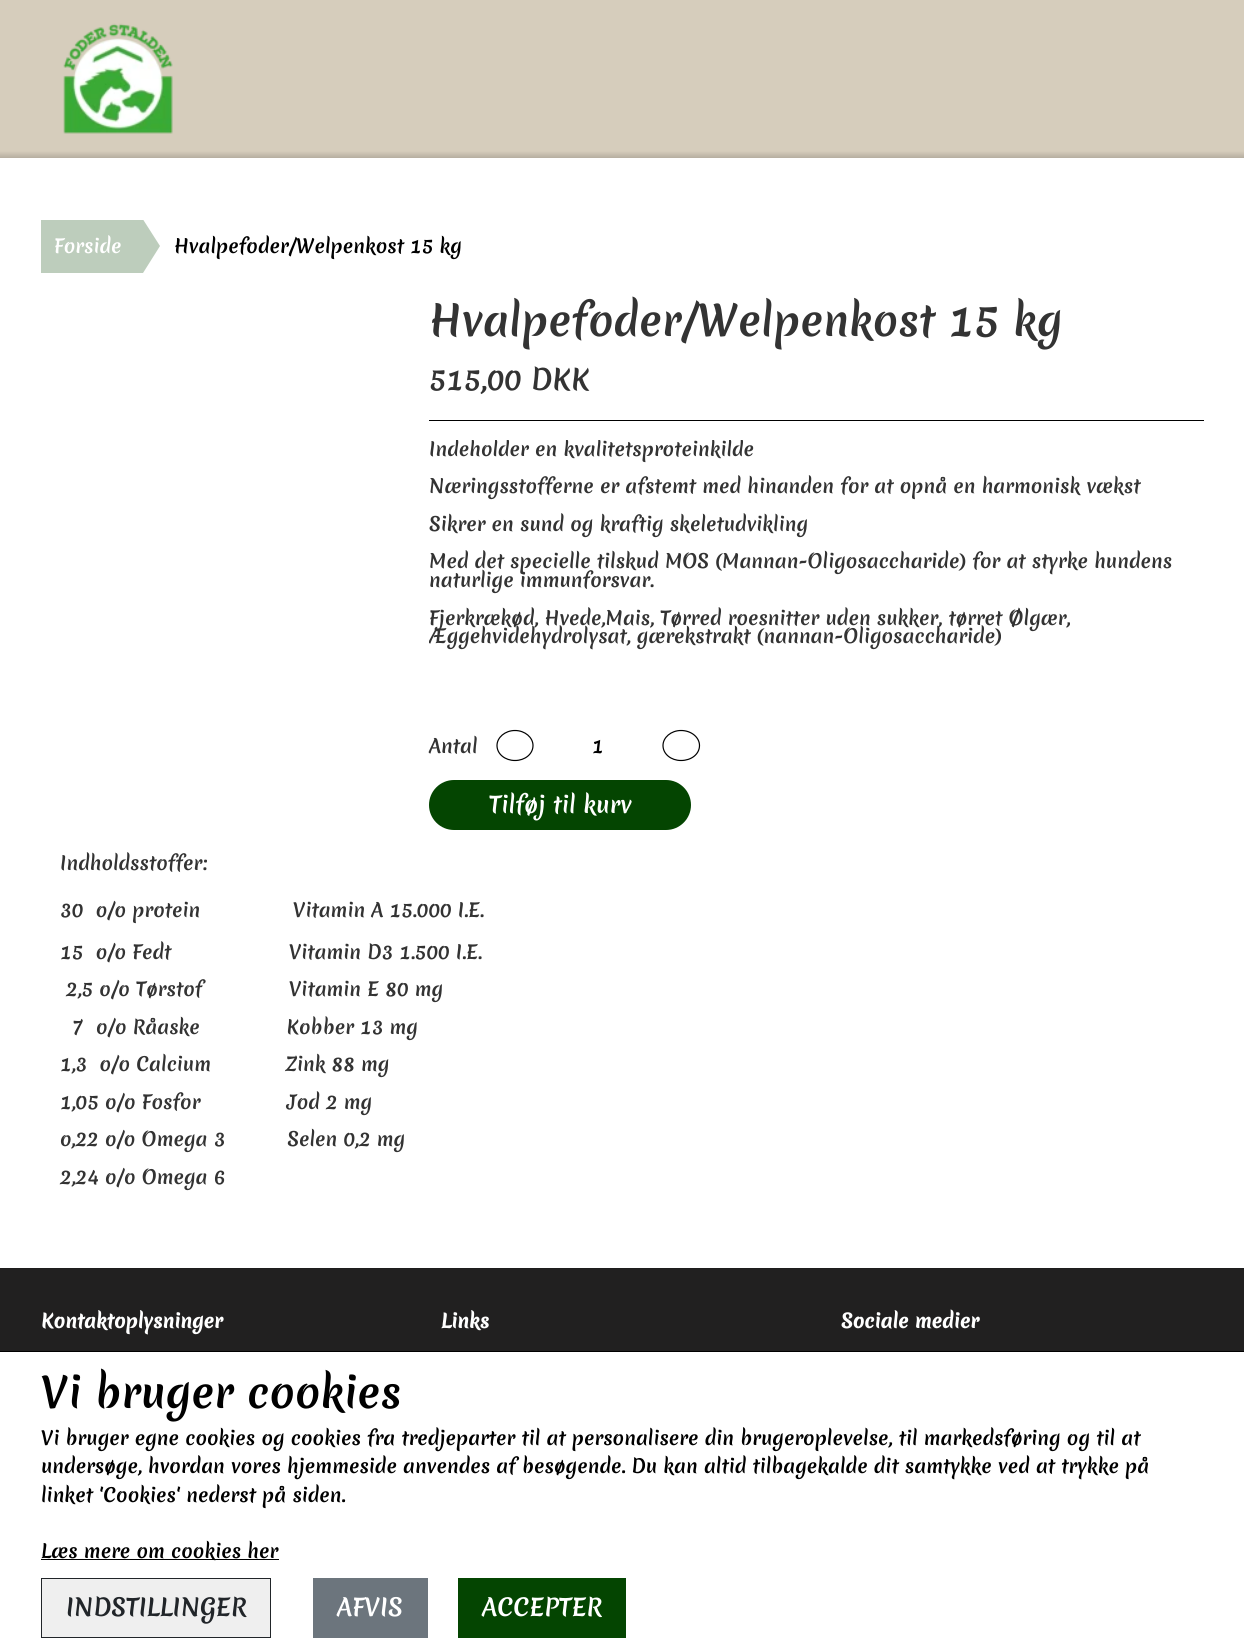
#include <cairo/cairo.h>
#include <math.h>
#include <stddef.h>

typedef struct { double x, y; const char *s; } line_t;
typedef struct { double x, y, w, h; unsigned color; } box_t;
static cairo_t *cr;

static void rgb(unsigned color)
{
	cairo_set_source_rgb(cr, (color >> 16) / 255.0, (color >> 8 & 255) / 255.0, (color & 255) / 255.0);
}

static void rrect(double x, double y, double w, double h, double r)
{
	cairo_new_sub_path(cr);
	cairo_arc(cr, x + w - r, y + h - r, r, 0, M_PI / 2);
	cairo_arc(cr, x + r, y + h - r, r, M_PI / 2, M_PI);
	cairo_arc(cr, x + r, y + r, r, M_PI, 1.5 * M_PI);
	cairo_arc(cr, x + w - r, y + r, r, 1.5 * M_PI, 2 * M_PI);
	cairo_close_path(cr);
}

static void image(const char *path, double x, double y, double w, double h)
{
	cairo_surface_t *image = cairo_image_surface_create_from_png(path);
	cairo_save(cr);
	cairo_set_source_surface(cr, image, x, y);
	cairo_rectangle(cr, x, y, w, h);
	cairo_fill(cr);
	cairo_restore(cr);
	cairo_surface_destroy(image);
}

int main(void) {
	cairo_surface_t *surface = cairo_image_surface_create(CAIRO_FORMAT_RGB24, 1244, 1646);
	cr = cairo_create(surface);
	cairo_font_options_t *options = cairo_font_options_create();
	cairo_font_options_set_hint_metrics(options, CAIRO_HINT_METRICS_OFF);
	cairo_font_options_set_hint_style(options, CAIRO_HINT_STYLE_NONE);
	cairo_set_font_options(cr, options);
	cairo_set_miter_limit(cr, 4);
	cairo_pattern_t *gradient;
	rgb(0x212020);
	cairo_paint(cr);
	rgb(0xd6cdbc);
	cairo_rectangle(cr, 0, 0, 1244, 151);
	cairo_fill(cr);
	image("img/1.png", 63, 23, 110, 111);
	gradient = cairo_pattern_create_linear(623, 158, 623, 151);
	cairo_pattern_add_color_stop_rgba(gradient, 0, 0.714, 0.682, 0.627, 1);
	cairo_pattern_add_color_stop_rgba(gradient, 1, 0.839, 0.804, 0.737, 1);
	cairo_set_source(cr, gradient);
	cairo_pattern_destroy(gradient);
	cairo_rectangle(cr, 0, 151, 1244, 7);
	cairo_fill(cr);
	rgb(0xffffff);
	cairo_rectangle(cr, 0, 158, 1244, 1110);
	cairo_fill(cr);
	rgb(0xbdcdbc);
	cairo_rectangle(cr, 41, 220, 80, 53);
	cairo_fill(cr);
	cairo_save(cr);
	cairo_rectangle(cr, 121, 220, 39, 53);
	cairo_clip(cr);
	cairo_new_path(cr);
	cairo_move_to(cr, 121, 308);
	cairo_line_to(cr, 121, 185);
	cairo_line_to(cr, 160, 246);
	cairo_close_path(cr);
	cairo_fill(cr);
	cairo_restore(cr);
	rgb(0x000000);
	cairo_rectangle(cr, 429, 420, 775, 1);
	cairo_fill(cr);
	cairo_new_path(cr);
	cairo_move_to(cr, 515, 730.5);
	cairo_curve_to(cr, 525, 730.5, 533, 737.5, 533, 745.5);
	cairo_curve_to(cr, 533, 754, 525, 760.5, 515, 760.5);
	cairo_curve_to(cr, 505, 760.5, 497, 754, 497, 745.5);
	cairo_curve_to(cr, 497, 737.5, 505, 730.5, 515, 730.5);
	cairo_close_path(cr);
	cairo_set_line_width(cr, 1.2);
	cairo_stroke(cr);
	cairo_new_path(cr);
	cairo_move_to(cr, 681, 730.5);
	cairo_curve_to(cr, 691.5, 730.5, 699.5, 737.5, 699.5, 745.5);
	cairo_curve_to(cr, 699.5, 754, 691.5, 760.5, 681, 760.5);
	cairo_curve_to(cr, 671, 760.5, 663, 754, 663, 745.5);
	cairo_curve_to(cr, 663, 737.5, 671, 730.5, 681, 730.5);
	cairo_close_path(cr);
	cairo_stroke(cr);
	rgb(0x044501);
	rrect(429, 780, 262, 50, 25);
	cairo_fill(cr);
	{
		static const box_t items[] = {
			{0, 1268, 1244, 1, 0x1e1e1e},
			{0, 1352, 1244, 294, 0xffffff},
			{0, 1351, 1244, 1, 0x000000},
			{41, 1559, 238, 1, 0x000000},
		};
		for (size_t i = 0; i < sizeof items / sizeof *items; i++) {
			rgb(items[i].color);
			cairo_rectangle(cr, items[i].x, items[i].y, items[i].w, items[i].h);
			cairo_fill(cr);
		}
	}
	rgb(0xefefef);
	cairo_rectangle(cr, 41.5, 1578.5, 229, 59);
	cairo_fill_preserve(cr);
	rgb(0x212529);
	cairo_set_line_width(cr, 1);
	cairo_stroke(cr);
	rgb(0x6c757d);
	cairo_rectangle(cr, 313, 1578, 115, 60);
	cairo_fill(cr);
	rgb(0x044501);
	cairo_rectangle(cr, 458, 1578, 168, 60);
	cairo_fill(cr);
	cairo_select_font_face(cr, "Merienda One", CAIRO_FONT_SLANT_NORMAL, CAIRO_FONT_WEIGHT_NORMAL);
	cairo_set_font_size(cr, 18.75);
	rgb(0xffffff);
	cairo_move_to(cr, 54, 253);
	cairo_show_text(cr, "Forside");
	rgb(0x000000);
	cairo_move_to(cr, 174, 253);
	cairo_show_text(cr, "Hvalpefoder/Welpenkost 15 kg");
	cairo_set_font_size(cr, 41.25);
	rgb(0x333333);
	cairo_move_to(cr, 429, 336);
	cairo_show_text(cr, "Hvalpefoder/Welpenkost 15 kg");
	cairo_set_font_size(cr, 28);
	cairo_move_to(cr, 429, 390);
	cairo_show_text(cr, "515,00 DKK");
	cairo_save(cr);
	cairo_rectangle(cr, 429, 440, 775, 271);
	cairo_clip(cr);
	cairo_set_font_size(cr, 18.75);
	cairo_move_to(cr, 429, 456);
	cairo_show_text(cr, "Indeholder en kvalitetsproteinkilde");
	cairo_restore(cr);
	cairo_set_font_size(cr, 18.75);
	{
		static const line_t items[] = {
			{429, 493, "Næringsstofferne er afstemt med hinanden for at opnå en harmonisk vækst"},
			{429, 531, "Sikrer en sund og kraftig skeletudvikling"},
			{429, 568, "Med det specielle tilskud MOS (Mannan-Oligosaccharide) for at styrke hundens"},
			{429, 587, "naturlige immunforsvar."},
			{429, 625, "Fjerkrækød, Hvede,Mais, Tørred roesnitter uden sukker, tørret Ølgær,"},
		};
		for (size_t i = 0; i < sizeof items / sizeof *items; i++) {
			cairo_move_to(cr, items[i].x, items[i].y);
			cairo_show_text(cr, items[i].s);
		}
	}
	cairo_save(cr);
	cairo_rectangle(cr, 429, 440, 775, 271);
	cairo_clip(cr);
	cairo_move_to(cr, 429, 643);
	cairo_show_text(cr, "Æggehvidehydrolysat, gærekstrakt (nannan-Oligosaccharide)");
	cairo_restore(cr);
	cairo_move_to(cr, 429, 753);
	cairo_show_text(cr, "Antal");
	rgb(0x000000);
	cairo_move_to(cr, 592, 753);
	cairo_show_text(cr, "1");
	cairo_set_font_size(cr, 22.5);
	rgb(0xffffff);
	cairo_move_to(cr, 489, 813);
	cairo_show_text(cr, "Tilføj til kurv");
	cairo_set_font_size(cr, 18.75);
	rgb(0x333333);
	{
		static const line_t items[] = {
			{60, 870, "Indholdsstoffer:"},
			{60, 917, "30  o/o protein               Vitamin A 15.000 I.E."},
			{60, 959, "15  o/o Fedt                   Vitamin D3 1.500 I.E."},
			{66, 996, "2,5 o/o Tørstof              Vitamin E 80 mg"},
			{72, 1034, "7  o/o Råaske              Kobber 13 mg"},
			{60, 1071, "1,3  o/o Calcium            Zink 88 mg"},
			{60, 1109, "1,05 o/o Fosfor              Jod 2 mg"},
			{60, 1146, "o,22 o/o Omega 3          Selen 0,2 mg"},
			{60, 1184, "2,24 o/o Omega 6"},
		};
		for (size_t i = 0; i < sizeof items / sizeof *items; i++) {
			cairo_move_to(cr, items[i].x, items[i].y);
			cairo_show_text(cr, items[i].s);
		}
	}
	cairo_select_font_face(cr, "Merienda One", CAIRO_FONT_SLANT_NORMAL, CAIRO_FONT_WEIGHT_BOLD);
	rgb(0xffffff);
	{
		static const line_t items[] = {
			{41, 1328, "Kontaktoplysninger"},
			{441, 1328, "Links"},
			{841, 1328, "Sociale medier"},
		};
		for (size_t i = 0; i < sizeof items / sizeof *items; i++) {
			cairo_move_to(cr, items[i].x, items[i].y);
			cairo_show_text(cr, items[i].s);
		}
	}
	cairo_select_font_face(cr, "Merienda One", CAIRO_FONT_SLANT_NORMAL, CAIRO_FONT_WEIGHT_NORMAL);
	cairo_set_font_size(cr, 41.25);
	rgb(0x000000);
	cairo_move_to(cr, 41, 1408);
	cairo_show_text(cr, "Vi bruger cookies");
	cairo_set_font_size(cr, 18.75);
	{
		static const line_t items[] = {
			{41, 1445, "Vi bruger egne cookies og cookies fra tredjeparter til at personalisere din brugeroplevelse, til markedsføring og til at"},
			{41, 1473, "undersøge, hvordan vores hjemmeside anvendes af besøgende. Du kan altid tilbagekalde dit samtykke ved at trykke på"},
			{41, 1502, "linket 'Cookies' nederst på siden."},
			{41, 1558, "Læs mere om cookies her"},
		};
		for (size_t i = 0; i < sizeof items / sizeof *items; i++) {
			cairo_move_to(cr, items[i].x, items[i].y);
			cairo_show_text(cr, items[i].s);
		}
	}
	cairo_set_font_size(cr, 23.5);
	rgb(0x212529);
	cairo_move_to(cr, 66, 1616);
	cairo_show_text(cr, "INDSTILLINGER");
	rgb(0xffffff);
	cairo_move_to(cr, 337, 1616);
	cairo_show_text(cr, "AFVIS");
	cairo_move_to(cr, 482, 1616);
	cairo_show_text(cr, "ACCEPTER");
	cairo_surface_write_to_png(surface, "page.png");
	cairo_font_options_destroy(options);
	cairo_destroy(cr);
	cairo_surface_destroy(surface);
	return 0;
}
